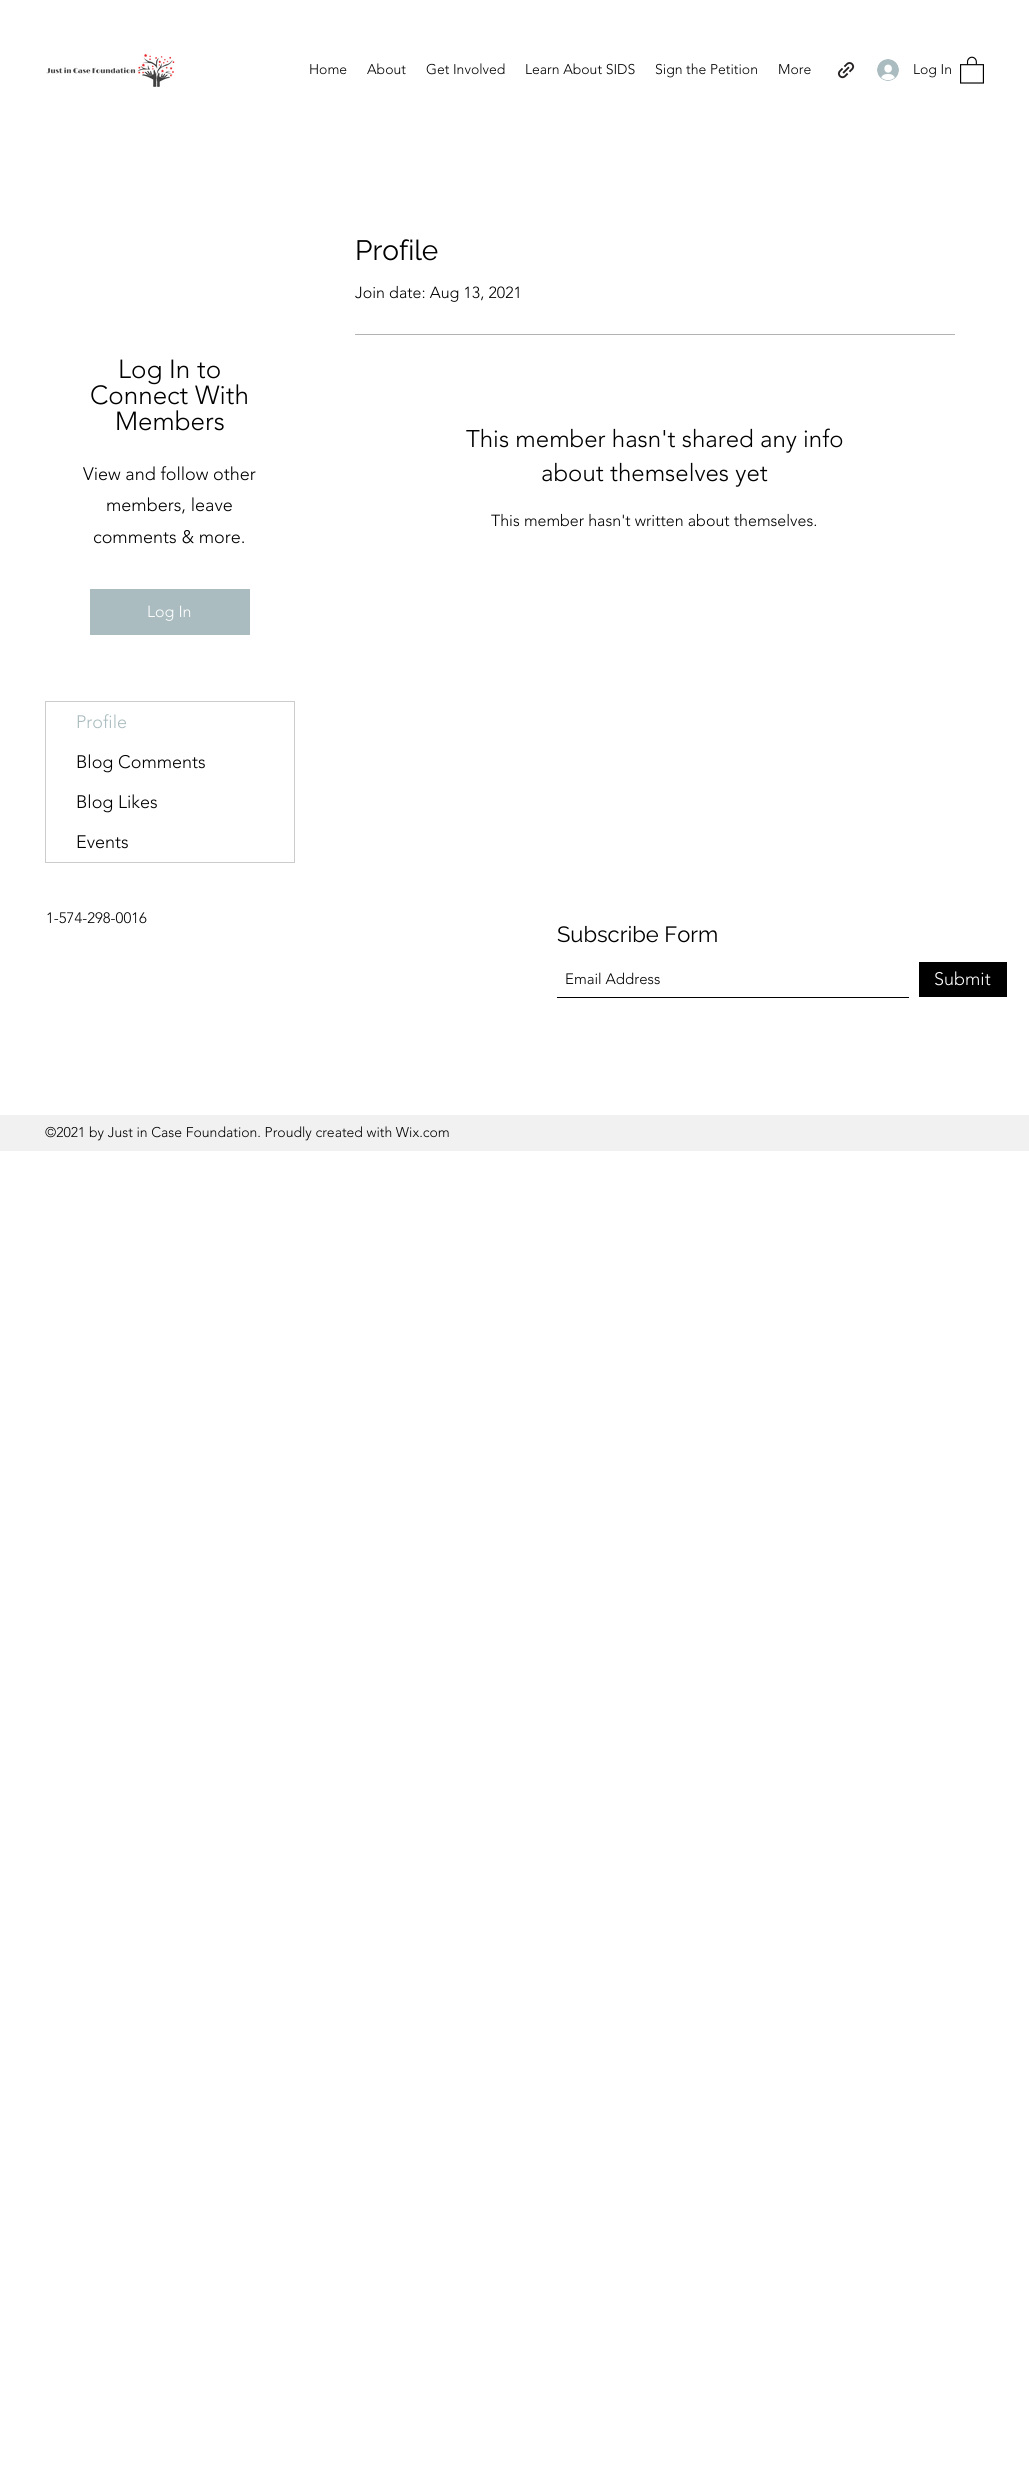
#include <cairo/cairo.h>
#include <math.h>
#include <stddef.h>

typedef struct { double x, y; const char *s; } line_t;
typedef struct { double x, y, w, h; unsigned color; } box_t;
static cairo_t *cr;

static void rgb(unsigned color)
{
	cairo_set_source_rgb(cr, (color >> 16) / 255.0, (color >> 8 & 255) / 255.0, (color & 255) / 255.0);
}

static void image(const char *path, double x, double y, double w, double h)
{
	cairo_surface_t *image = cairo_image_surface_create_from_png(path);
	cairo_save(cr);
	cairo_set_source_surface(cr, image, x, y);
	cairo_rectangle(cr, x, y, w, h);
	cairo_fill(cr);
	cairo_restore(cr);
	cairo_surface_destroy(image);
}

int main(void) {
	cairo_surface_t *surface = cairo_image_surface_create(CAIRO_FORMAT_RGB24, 1029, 2486);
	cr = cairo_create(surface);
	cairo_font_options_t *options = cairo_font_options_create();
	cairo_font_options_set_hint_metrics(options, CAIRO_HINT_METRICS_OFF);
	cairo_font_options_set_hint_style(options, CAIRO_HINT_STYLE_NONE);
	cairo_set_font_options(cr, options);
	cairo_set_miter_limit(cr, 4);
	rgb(0xffffff);
	cairo_paint(cr);
	image("img/1.png", 46, 53, 129, 34);
	image("img/2.png", 837, 61, 18, 18);
	image("img/3.png", 877, 59, 22, 22);
	image("img/4.png", 960, 56, 24, 28);
	rgb(0xaabcbf);
	cairo_rectangle(cr, 90, 589, 160, 46);
	cairo_fill(cr);
	cairo_rectangle(cr, 45.5, 701.5, 249, 161);
	rgb(0xcccccc);
	cairo_set_line_width(cr, 1);
	cairo_stroke(cr);
	{
		static const box_t items[] = {
			{355, 334, 600, 1, 0xb3b3b3},
			{557, 997, 352, 1, 0x000000},
			{919, 962, 88, 35, 0x000000},
			{0, 1115, 1029, 36, 0xf1f1f1},
		};
		for (size_t i = 0; i < sizeof items / sizeof *items; i++) {
			rgb(items[i].color);
			cairo_rectangle(cr, items[i].x, items[i].y, items[i].w, items[i].h);
			cairo_fill(cr);
		}
	}
	cairo_select_font_face(cr, "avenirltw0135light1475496 Light", CAIRO_FONT_SLANT_NORMAL, CAIRO_FONT_WEIGHT_NORMAL);
	cairo_set_font_size(cr, 14);
	rgb(0x000000);
	{
		static const line_t items[] = {
			{309, 74, "Home"},
			{367, 74, "About"},
			{426, 74, "Get Involved"},
			{525, 74, "Learn About SIDS"},
			{655, 74, "Sign the Petition"},
			{778, 74, "More"},
			{913, 74, "Log In"},
		};
		for (size_t i = 0; i < sizeof items / sizeof *items; i++) {
			cairo_move_to(cr, items[i].x, items[i].y);
			cairo_show_text(cr, items[i].s);
		}
	}
	cairo_set_font_size(cr, 26);
	{
		static const line_t items[] = {
			{118, 378, "Log In to"},
			{90, 404, "Connect With"},
			{115, 430, "Members"},
		};
		for (size_t i = 0; i < sizeof items / sizeof *items; i++) {
			cairo_move_to(cr, items[i].x, items[i].y);
			cairo_show_text(cr, items[i].s);
		}
	}
	cairo_set_font_size(cr, 18);
	{
		static const line_t items[] = {
			{83, 480, "View and follow other"},
			{106, 511, "members, leave"},
			{93, 543, "comments & more."},
		};
		for (size_t i = 0; i < sizeof items / sizeof *items; i++) {
			cairo_move_to(cr, items[i].x, items[i].y);
			cairo_show_text(cr, items[i].s);
		}
	}
	cairo_set_font_size(cr, 16);
	rgb(0xffffff);
	cairo_move_to(cr, 147, 617);
	cairo_show_text(cr, "Log In");
	cairo_set_font_size(cr, 18);
	rgb(0xaabcbf);
	cairo_move_to(cr, 76, 728);
	cairo_show_text(cr, "Profile");
	rgb(0x000000);
	{
		static const line_t items[] = {
			{76, 768, "Blog Comments"},
			{76, 808, "Blog Likes"},
			{76, 848, "Events"},
		};
		for (size_t i = 0; i < sizeof items / sizeof *items; i++) {
			cairo_move_to(cr, items[i].x, items[i].y);
			cairo_show_text(cr, items[i].s);
		}
	}
	cairo_select_font_face(cr, "Raleway", CAIRO_FONT_SLANT_NORMAL, CAIRO_FONT_WEIGHT_NORMAL);
	cairo_set_font_size(cr, 28);
	cairo_move_to(cr, 355, 260);
	cairo_show_text(cr, "Profile");
	cairo_select_font_face(cr, "avenirltw0135light1475496 Light", CAIRO_FONT_SLANT_NORMAL, CAIRO_FONT_WEIGHT_NORMAL);
	cairo_set_font_size(cr, 16);
	cairo_move_to(cr, 355, 298);
	cairo_show_text(cr, "Join date: Aug 13, 2021");
	cairo_set_font_size(cr, 24);
	cairo_move_to(cr, 466, 447);
	cairo_show_text(cr, "This member hasn't shared any info");
	cairo_move_to(cr, 541, 481);
	cairo_show_text(cr, "about themselves yet");
	cairo_set_font_size(cr, 16);
	cairo_move_to(cr, 491, 526);
	cairo_show_text(cr, "This member hasn't written about themselves.");
	cairo_set_font_size(cr, 15);
	cairo_move_to(cr, 46, 923);
	cairo_show_text(cr, "1-574-298-0016");
	cairo_select_font_face(cr, "Raleway", CAIRO_FONT_SLANT_NORMAL, CAIRO_FONT_WEIGHT_NORMAL);
	cairo_set_font_size(cr, 22);
	cairo_move_to(cr, 557, 942);
	cairo_show_text(cr, "Subscribe Form");
	cairo_select_font_face(cr, "avenirltw0135light1475496 Light", CAIRO_FONT_SLANT_NORMAL, CAIRO_FONT_WEIGHT_NORMAL);
	cairo_set_font_size(cr, 15);
	cairo_move_to(cr, 565, 984);
	cairo_show_text(cr, "Email Address");
	cairo_set_font_size(cr, 18);
	rgb(0xffffff);
	cairo_move_to(cr, 934, 985);
	cairo_show_text(cr, "Submit");
	cairo_set_font_size(cr, 14);
	rgb(0x000000);
	cairo_move_to(cr, 45, 1137);
	cairo_show_text(cr, "©2021 by Just in Case Foundation. Proudly created with Wix.com");
	cairo_surface_write_to_png(surface, "page.png");
	cairo_font_options_destroy(options);
	cairo_destroy(cr);
	cairo_surface_destroy(surface);
	return 0;
}
